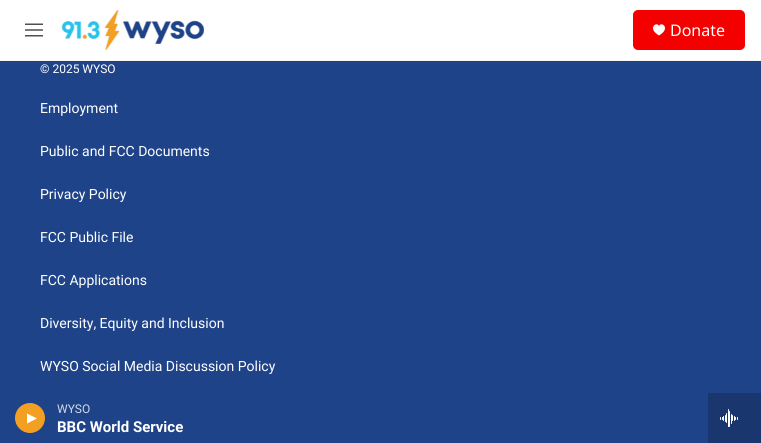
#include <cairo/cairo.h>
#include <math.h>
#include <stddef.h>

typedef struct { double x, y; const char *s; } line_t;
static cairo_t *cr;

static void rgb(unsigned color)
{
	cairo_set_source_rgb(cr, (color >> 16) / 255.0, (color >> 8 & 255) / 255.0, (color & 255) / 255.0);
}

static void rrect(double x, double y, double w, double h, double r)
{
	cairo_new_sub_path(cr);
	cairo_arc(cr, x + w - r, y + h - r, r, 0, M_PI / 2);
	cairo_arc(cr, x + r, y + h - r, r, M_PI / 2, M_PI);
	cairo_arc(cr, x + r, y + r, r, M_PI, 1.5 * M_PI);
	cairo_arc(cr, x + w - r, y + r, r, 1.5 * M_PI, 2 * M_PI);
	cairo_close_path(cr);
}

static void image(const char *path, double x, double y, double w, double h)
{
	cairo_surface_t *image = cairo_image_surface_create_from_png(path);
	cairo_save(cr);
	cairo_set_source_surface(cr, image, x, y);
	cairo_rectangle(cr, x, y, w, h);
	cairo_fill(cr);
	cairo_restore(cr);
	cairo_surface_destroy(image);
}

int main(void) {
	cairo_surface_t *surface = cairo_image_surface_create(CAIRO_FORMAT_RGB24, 761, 443);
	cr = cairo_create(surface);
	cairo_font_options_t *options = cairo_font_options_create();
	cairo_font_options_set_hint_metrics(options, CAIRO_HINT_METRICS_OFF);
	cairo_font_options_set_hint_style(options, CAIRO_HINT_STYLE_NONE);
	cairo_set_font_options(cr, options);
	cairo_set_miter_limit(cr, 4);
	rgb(0x1f4389);
	cairo_paint(cr);
	rgb(0xffffff);
	cairo_rectangle(cr, 0, 0, 761, 60);
	cairo_fill(cr);
	rgb(0xf5f5f5);
	cairo_rectangle(cr, 0, 60, 761, 1);
	cairo_fill(cr);
	image("img/1.png", 25, 23, 18, 14);
	image("img/2.png", 61, 10, 143, 40);
	rgb(0xf50000);
	rrect(633, 10, 112, 40, 5);
	cairo_fill(cr);
	rgb(0xffffff);
	cairo_new_path(cr);
	cairo_move_to(cr, 659, 26);
	cairo_curve_to(cr, 657, 21, 646.5, 28, 659, 35.5);
	cairo_curve_to(cr, 671.5, 28, 661, 21, 659, 26);
	cairo_close_path(cr);
	cairo_fill(cr);
	rgb(0xf29f22);
	cairo_arc(cr, 30, 418, 15, 0, 2 * M_PI);
	cairo_fill(cr);
	rgb(0xffffff);
	cairo_new_path(cr);
	cairo_move_to(cr, 27, 413.5);
	cairo_line_to(cr, 37, 418.5);
	cairo_line_to(cr, 27, 423.5);
	cairo_close_path(cr);
	cairo_fill(cr);
	rgb(0x19366e);
	cairo_rectangle(cr, 708, 393, 53, 50);
	cairo_fill(cr);
	image("img/3.png", 720, 409, 18, 18);
	cairo_select_font_face(cr, "Noto Sans", CAIRO_FONT_SLANT_NORMAL, CAIRO_FONT_WEIGHT_NORMAL);
	cairo_set_font_size(cr, 16);
	rgb(0xffffff);
	cairo_move_to(cr, 670, 36);
	cairo_show_text(cr, "Donate");
	cairo_select_font_face(cr, "Roboto", CAIRO_FONT_SLANT_NORMAL, CAIRO_FONT_WEIGHT_NORMAL);
	cairo_set_font_size(cr, 12);
	rgb(0xd2d9e7);
	cairo_move_to(cr, 57, 413);
	cairo_show_text(cr, "WYSO");
	cairo_select_font_face(cr, "Roboto", CAIRO_FONT_SLANT_NORMAL, CAIRO_FONT_WEIGHT_BOLD);
	cairo_set_font_size(cr, 15);
	rgb(0xffffff);
	cairo_move_to(cr, 57, 432);
	cairo_show_text(cr, "BBC World Service");
	cairo_select_font_face(cr, "Roboto", CAIRO_FONT_SLANT_NORMAL, CAIRO_FONT_WEIGHT_NORMAL);
	cairo_set_font_size(cr, 12);
	cairo_move_to(cr, 40, 73);
	cairo_show_text(cr, "© 2025 WYSO");
	cairo_set_font_size(cr, 14);
	{
		static const line_t items[] = {
			{40, 113, "Employment"},
			{40, 156, "Public and FCC Documents"},
			{40, 199, "Privacy Policy"},
			{40, 242, "FCC Public File"},
			{40, 285, "FCC Applications"},
			{40, 328, "Diversity, Equity and Inclusion"},
			{40, 371, "WYSO Social Media Discussion Policy"},
		};
		for (size_t i = 0; i < sizeof items / sizeof *items; i++) {
			cairo_move_to(cr, items[i].x, items[i].y);
			cairo_show_text(cr, items[i].s);
		}
	}
	cairo_surface_write_to_png(surface, "page.png");
	cairo_font_options_destroy(options);
	cairo_destroy(cr);
	cairo_surface_destroy(surface);
	return 0;
}
